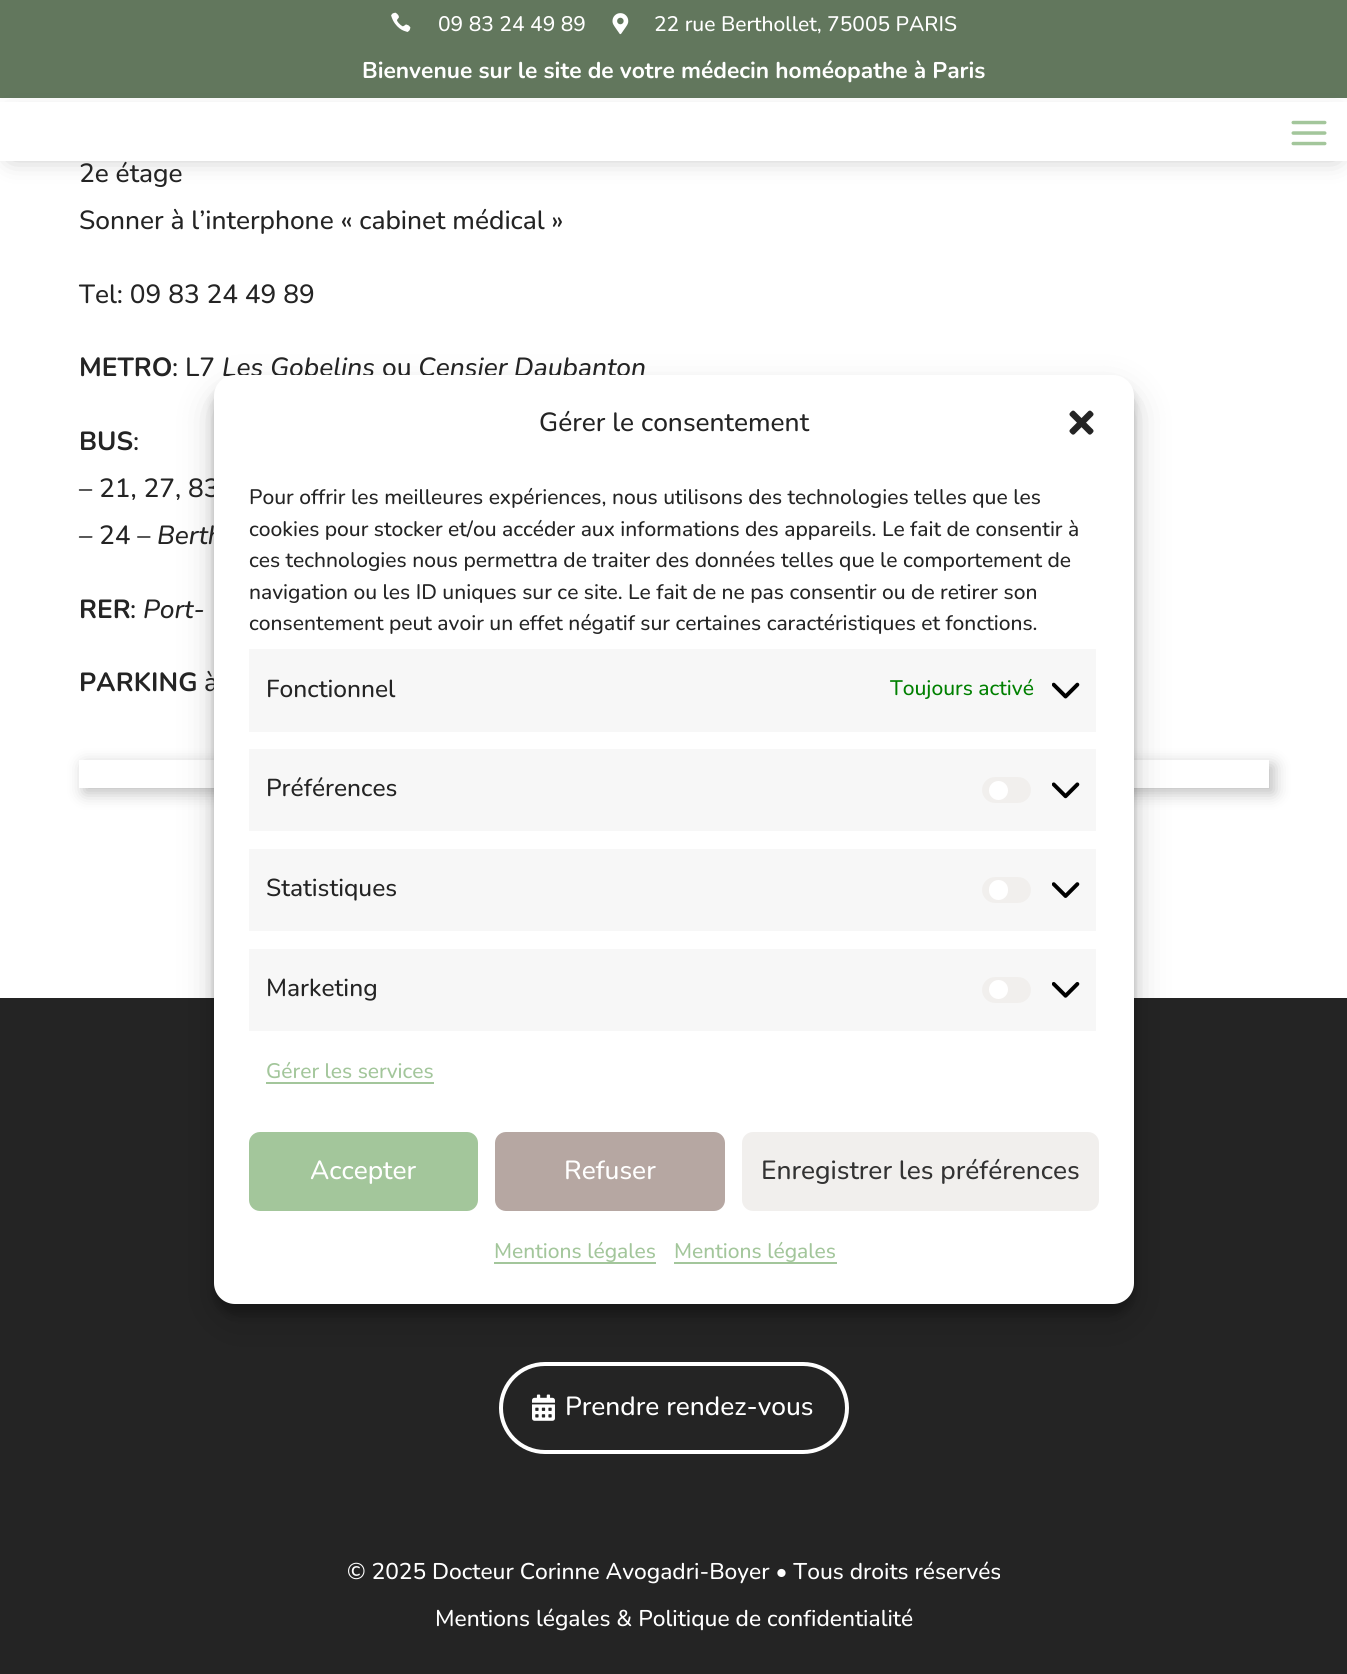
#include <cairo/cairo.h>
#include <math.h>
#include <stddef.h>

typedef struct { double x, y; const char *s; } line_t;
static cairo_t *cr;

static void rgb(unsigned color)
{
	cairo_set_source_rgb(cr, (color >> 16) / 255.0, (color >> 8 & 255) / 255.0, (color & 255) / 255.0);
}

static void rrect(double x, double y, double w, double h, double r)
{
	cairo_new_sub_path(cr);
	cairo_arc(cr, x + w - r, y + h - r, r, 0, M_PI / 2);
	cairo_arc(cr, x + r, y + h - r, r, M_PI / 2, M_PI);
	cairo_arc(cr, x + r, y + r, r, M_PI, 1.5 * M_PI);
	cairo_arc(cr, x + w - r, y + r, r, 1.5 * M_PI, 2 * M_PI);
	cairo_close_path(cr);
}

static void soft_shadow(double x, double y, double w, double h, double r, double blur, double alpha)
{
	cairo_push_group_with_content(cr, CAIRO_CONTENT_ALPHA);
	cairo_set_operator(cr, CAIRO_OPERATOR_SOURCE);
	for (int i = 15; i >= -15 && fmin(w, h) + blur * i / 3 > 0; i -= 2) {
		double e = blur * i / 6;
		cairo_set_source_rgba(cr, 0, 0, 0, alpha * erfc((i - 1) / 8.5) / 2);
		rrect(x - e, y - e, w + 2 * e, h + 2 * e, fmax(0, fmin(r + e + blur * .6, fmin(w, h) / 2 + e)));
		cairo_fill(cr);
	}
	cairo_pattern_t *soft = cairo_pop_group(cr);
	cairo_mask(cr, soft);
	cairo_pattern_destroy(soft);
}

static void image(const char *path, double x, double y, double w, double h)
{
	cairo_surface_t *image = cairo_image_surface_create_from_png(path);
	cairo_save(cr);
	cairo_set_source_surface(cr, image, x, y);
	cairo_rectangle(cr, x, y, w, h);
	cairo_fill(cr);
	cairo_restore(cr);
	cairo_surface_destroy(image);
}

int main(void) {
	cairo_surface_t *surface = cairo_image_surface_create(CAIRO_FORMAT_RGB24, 1347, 1674);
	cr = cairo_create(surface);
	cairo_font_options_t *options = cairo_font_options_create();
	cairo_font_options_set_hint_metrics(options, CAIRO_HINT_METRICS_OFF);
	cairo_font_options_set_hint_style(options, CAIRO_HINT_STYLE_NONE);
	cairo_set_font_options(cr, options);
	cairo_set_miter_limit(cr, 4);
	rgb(0xffffff);
	cairo_paint(cr);
	rgb(0x62775d);
	cairo_rectangle(cr, 0, 0, 1347, 98);
	cairo_fill(cr);
	image("img/1.png", 391, 12, 20, 20);
	image("img/2.png", 612, 13, 17, 22);
	rgb(0x242424);
	soft_shadow(11, 117, 1326, 39, 0, 13, 0.33);
	rgb(0xffffff);
	cairo_rectangle(cr, 0, 102, 1347, 59);
	cairo_fill(cr);
	image("img/3.png", 1291, 120, 36, 26);
	cairo_save(cr);
	cairo_set_fill_rule(cr, CAIRO_FILL_RULE_EVEN_ODD);
	cairo_new_path(cr);
	cairo_move_to(cr, 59, 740);
	cairo_line_to(cr, 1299, 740);
	cairo_line_to(cr, 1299, 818);
	cairo_line_to(cr, 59, 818);
	cairo_close_path(cr);
	cairo_move_to(cr, 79, 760);
	cairo_line_to(cr, 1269, 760);
	cairo_line_to(cr, 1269, 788);
	cairo_line_to(cr, 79, 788);
	cairo_close_path(cr);
	cairo_clip(cr);
	rgb(0x242424);
	soft_shadow(84, 765, 1190, 28, 0, 8, 0.3);
	cairo_restore(cr);
	rgb(0x242424);
	cairo_rectangle(cr, 0, 998, 1347, 676);
	cairo_fill(cr);
	rrect(501, 1364, 346, 88, 44);
	rgb(0xffffff);
	cairo_set_line_width(cr, 4);
	cairo_stroke(cr);
	image("img/4.png", 532, 1394, 23, 27);
	rgb(0x000000);
	soft_shadow(214, 385, 920, 929, 21, 5, 0.23);
	soft_shadow(214, 392, 920, 929, 21, 17.5, 0.19);
	cairo_select_font_face(cr, "Nunito Medium", CAIRO_FONT_SLANT_NORMAL, CAIRO_FONT_WEIGHT_NORMAL);
	cairo_set_font_size(cr, 21);
	rgb(0xffffff);
	cairo_move_to(cr, 438, 31);
	cairo_show_text(cr, "09 83 24 49 89");
	cairo_move_to(cr, 654, 31);
	cairo_show_text(cr, "22 rue Berthollet, 75005 PARIS");
	cairo_select_font_face(cr, "Nunito", CAIRO_FONT_SLANT_NORMAL, CAIRO_FONT_WEIGHT_BOLD);
	cairo_set_font_size(cr, 22.75);
	cairo_move_to(cr, 362, 78);
	cairo_show_text(cr, "Bienvenue sur le site de votre médecin homéopathe à Paris");
	cairo_select_font_face(cr, "Nunito Medium", CAIRO_FONT_SLANT_NORMAL, CAIRO_FONT_WEIGHT_NORMAL);
	cairo_set_font_size(cr, 26.25);
	rgb(0x242424);
	{
		static const line_t items[] = {
			{79, 182, "2e étage"},
			{79, 229, "Sonner à l’interphone « cabinet médical »"},
			{79, 303, "Tel: 09 83 24 49 89"},
		};
		for (size_t i = 0; i < sizeof items / sizeof *items; i++) {
			cairo_move_to(cr, items[i].x, items[i].y);
			cairo_show_text(cr, items[i].s);
		}
	}
	cairo_select_font_face(cr, "Nunito", CAIRO_FONT_SLANT_NORMAL, CAIRO_FONT_WEIGHT_BOLD);
	cairo_move_to(cr, 79, 376);
	cairo_show_text(cr, "METRO");
	cairo_select_font_face(cr, "Nunito Medium", CAIRO_FONT_SLANT_NORMAL, CAIRO_FONT_WEIGHT_NORMAL);
	cairo_move_to(cr, 172, 376);
	cairo_show_text(cr, ": L7");
	cairo_select_font_face(cr, "Nunito Medium", CAIRO_FONT_SLANT_ITALIC, CAIRO_FONT_WEIGHT_NORMAL);
	cairo_move_to(cr, 222, 376);
	cairo_show_text(cr, "Les Gobelins");
	cairo_select_font_face(cr, "Nunito Medium", CAIRO_FONT_SLANT_NORMAL, CAIRO_FONT_WEIGHT_NORMAL);
	cairo_move_to(cr, 382, 376);
	cairo_show_text(cr, "ou");
	cairo_select_font_face(cr, "Nunito Medium", CAIRO_FONT_SLANT_ITALIC, CAIRO_FONT_WEIGHT_NORMAL);
	cairo_move_to(cr, 418, 376);
	cairo_show_text(cr, "Censier Daubanton");
	cairo_select_font_face(cr, "Nunito", CAIRO_FONT_SLANT_NORMAL, CAIRO_FONT_WEIGHT_BOLD);
	cairo_move_to(cr, 79, 450);
	cairo_show_text(cr, "BUS");
	cairo_select_font_face(cr, "Nunito Medium", CAIRO_FONT_SLANT_NORMAL, CAIRO_FONT_WEIGHT_NORMAL);
	cairo_move_to(cr, 133, 450);
	cairo_show_text(cr, ":");
	cairo_move_to(cr, 79, 497);
	cairo_show_text(cr, "– 21, 27, 83");
	cairo_select_font_face(cr, "Nunito Medium", CAIRO_FONT_SLANT_ITALIC, CAIRO_FONT_WEIGHT_NORMAL);
	cairo_move_to(cr, 79, 544);
	cairo_show_text(cr, "–");
	cairo_select_font_face(cr, "Nunito Medium", CAIRO_FONT_SLANT_NORMAL, CAIRO_FONT_WEIGHT_NORMAL);
	cairo_move_to(cr, 99, 544);
	cairo_show_text(cr, "24 –");
	cairo_select_font_face(cr, "Nunito Medium", CAIRO_FONT_SLANT_ITALIC, CAIRO_FONT_WEIGHT_NORMAL);
	cairo_move_to(cr, 157, 544);
	cairo_show_text(cr, "Berth");
	cairo_select_font_face(cr, "Nunito", CAIRO_FONT_SLANT_NORMAL, CAIRO_FONT_WEIGHT_BOLD);
	cairo_move_to(cr, 79, 618);
	cairo_show_text(cr, "RER");
	cairo_select_font_face(cr, "Nunito Medium", CAIRO_FONT_SLANT_NORMAL, CAIRO_FONT_WEIGHT_NORMAL);
	cairo_move_to(cr, 130, 618);
	cairo_show_text(cr, ":");
	cairo_select_font_face(cr, "Nunito Medium", CAIRO_FONT_SLANT_ITALIC, CAIRO_FONT_WEIGHT_NORMAL);
	cairo_move_to(cr, 143, 618);
	cairo_show_text(cr, "Port-");
	cairo_select_font_face(cr, "Nunito", CAIRO_FONT_SLANT_NORMAL, CAIRO_FONT_WEIGHT_BOLD);
	cairo_move_to(cr, 79, 691);
	cairo_show_text(cr, "PARKING");
	cairo_select_font_face(cr, "Nunito Medium", CAIRO_FONT_SLANT_NORMAL, CAIRO_FONT_WEIGHT_NORMAL);
	cairo_move_to(cr, 204, 691);
	cairo_show_text(cr, "à");
	rgb(0xffffff);
	cairo_move_to(cr, 565, 1415);
	cairo_show_text(cr, "Prendre rendez-vous");
	cairo_set_font_size(cr, 22.75);
	cairo_move_to(cr, 347, 1579);
	cairo_show_text(cr, "© 2025 Docteur Corinne Avogadri-Boyer • Tous droits réservés");
	cairo_move_to(cr, 435, 1626);
	cairo_show_text(cr, "Mentions légales & Politique de confidentialité");
	rrect(214, 375, 920, 929, 21);
	cairo_fill(cr);
	cairo_set_font_size(cr, 26.25);
	rgb(0x242424);
	cairo_move_to(cr, 539, 431);
	cairo_show_text(cr, "Gérer le consentement");
	image("img/5.png", 1069, 410, 25, 25);
	cairo_set_font_size(cr, 21);
	{
		static const line_t items[] = {
			{249, 504, "Pour offrir les meilleures expériences, nous utilisons des technologies telles que les"},
			{249, 536, "cookies pour stocker et/ou accéder aux informations des appareils. Le fait de consentir à"},
			{249, 567, "ces technologies nous permettra de traiter des données telles que le comportement de"},
			{249, 599, "navigation ou les ID uniques sur ce site. Le fait de ne pas consentir ou de retirer son"},
			{249, 630, "consentement peut avoir un effet négatif sur certaines caractéristiques et fonctions."},
		};
		for (size_t i = 0; i < sizeof items / sizeof *items; i++) {
			cairo_move_to(cr, items[i].x, items[i].y);
			cairo_show_text(cr, items[i].s);
		}
	}
	rgb(0xf7f7f7);
	cairo_rectangle(cr, 249, 649, 847, 83);
	cairo_fill(cr);
	cairo_set_font_size(cr, 24.5);
	rgb(0x242424);
	cairo_move_to(cr, 266, 697);
	cairo_show_text(cr, "Fonctionnel");
	cairo_set_font_size(cr, 21);
	rgb(0x008000);
	cairo_move_to(cr, 890, 695);
	cairo_show_text(cr, "Toujours activé");
	image("img/6.png", 1052, 682, 28, 17);
	rgb(0xf7f7f7);
	cairo_rectangle(cr, 249, 749, 847, 82);
	cairo_fill(cr);
	cairo_set_font_size(cr, 24.5);
	rgb(0x242424);
	cairo_move_to(cr, 266, 796);
	cairo_show_text(cr, "Préférences");
	rgb(0xf1efed);
	rrect(982, 777, 49, 26, 13);
	cairo_fill(cr);
	rgb(0xffffff);
	cairo_arc(cr, 998.5, 790.5, 9.5, 0, 2 * M_PI);
	cairo_fill(cr);
	image("img/7.png", 1052, 782, 28, 17);
	rgb(0xf7f7f7);
	cairo_rectangle(cr, 249, 849, 847, 82);
	cairo_fill(cr);
	rgb(0x242424);
	cairo_move_to(cr, 266, 896);
	cairo_show_text(cr, "Statistiques");
	rgb(0xf1efed);
	rrect(982, 877, 49, 26, 13);
	cairo_fill(cr);
	rgb(0xffffff);
	rrect(989, 880, 19, 20, 9.5);
	cairo_fill(cr);
	image("img/8.png", 1052, 882, 28, 16);
	rgb(0xf7f7f7);
	cairo_rectangle(cr, 249, 949, 847, 82);
	cairo_fill(cr);
	rgb(0x242424);
	cairo_move_to(cr, 266, 996);
	cairo_show_text(cr, "Marketing");
	rgb(0xf1efed);
	rrect(982, 977, 49, 26, 13);
	cairo_fill(cr);
	rgb(0xffffff);
	cairo_arc(cr, 998.5, 989.5, 9.5, 0, 2 * M_PI);
	cairo_fill(cr);
	image("img/9.png", 1052, 982, 28, 16);
	cairo_set_font_size(cr, 21);
	rgb(0xa3c69b);
	cairo_move_to(cr, 266, 1078);
	cairo_show_text(cr, "Gérer les services");
	cairo_rectangle(cr, 266, 1082, 168, 2);
	cairo_fill(cr);
	rrect(250, 1133, 227, 77, 10);
	cairo_fill_preserve(cr);
	cairo_set_line_width(cr, 2);
	cairo_stroke(cr);
	cairo_set_font_size(cr, 26.25);
	rgb(0xffffff);
	cairo_move_to(cr, 310, 1179);
	cairo_show_text(cr, "Accepter");
	rgb(0xb6a7a2);
	rrect(496, 1133, 228, 77, 10);
	cairo_fill_preserve(cr);
	cairo_stroke(cr);
	rgb(0xffffff);
	cairo_move_to(cr, 564, 1179);
	cairo_show_text(cr, "Refuser");
	rgb(0xf1efed);
	rrect(743, 1133, 355, 77, 10);
	cairo_fill_preserve(cr);
	cairo_stroke(cr);
	rgb(0x333333);
	cairo_move_to(cr, 761, 1179);
	cairo_show_text(cr, "Enregistrer les préférences");
	cairo_set_font_size(cr, 21);
	rgb(0xa3c69b);
	cairo_move_to(cr, 494, 1258);
	cairo_show_text(cr, "Mentions légales");
	cairo_rectangle(cr, 494, 1262, 162, 2);
	cairo_fill(cr);
	cairo_move_to(cr, 674, 1258);
	cairo_show_text(cr, "Mentions légales");
	cairo_rectangle(cr, 674, 1262, 163, 2);
	cairo_fill(cr);
	cairo_surface_write_to_png(surface, "page.png");
	cairo_font_options_destroy(options);
	cairo_destroy(cr);
	cairo_surface_destroy(surface);
	return 0;
}
